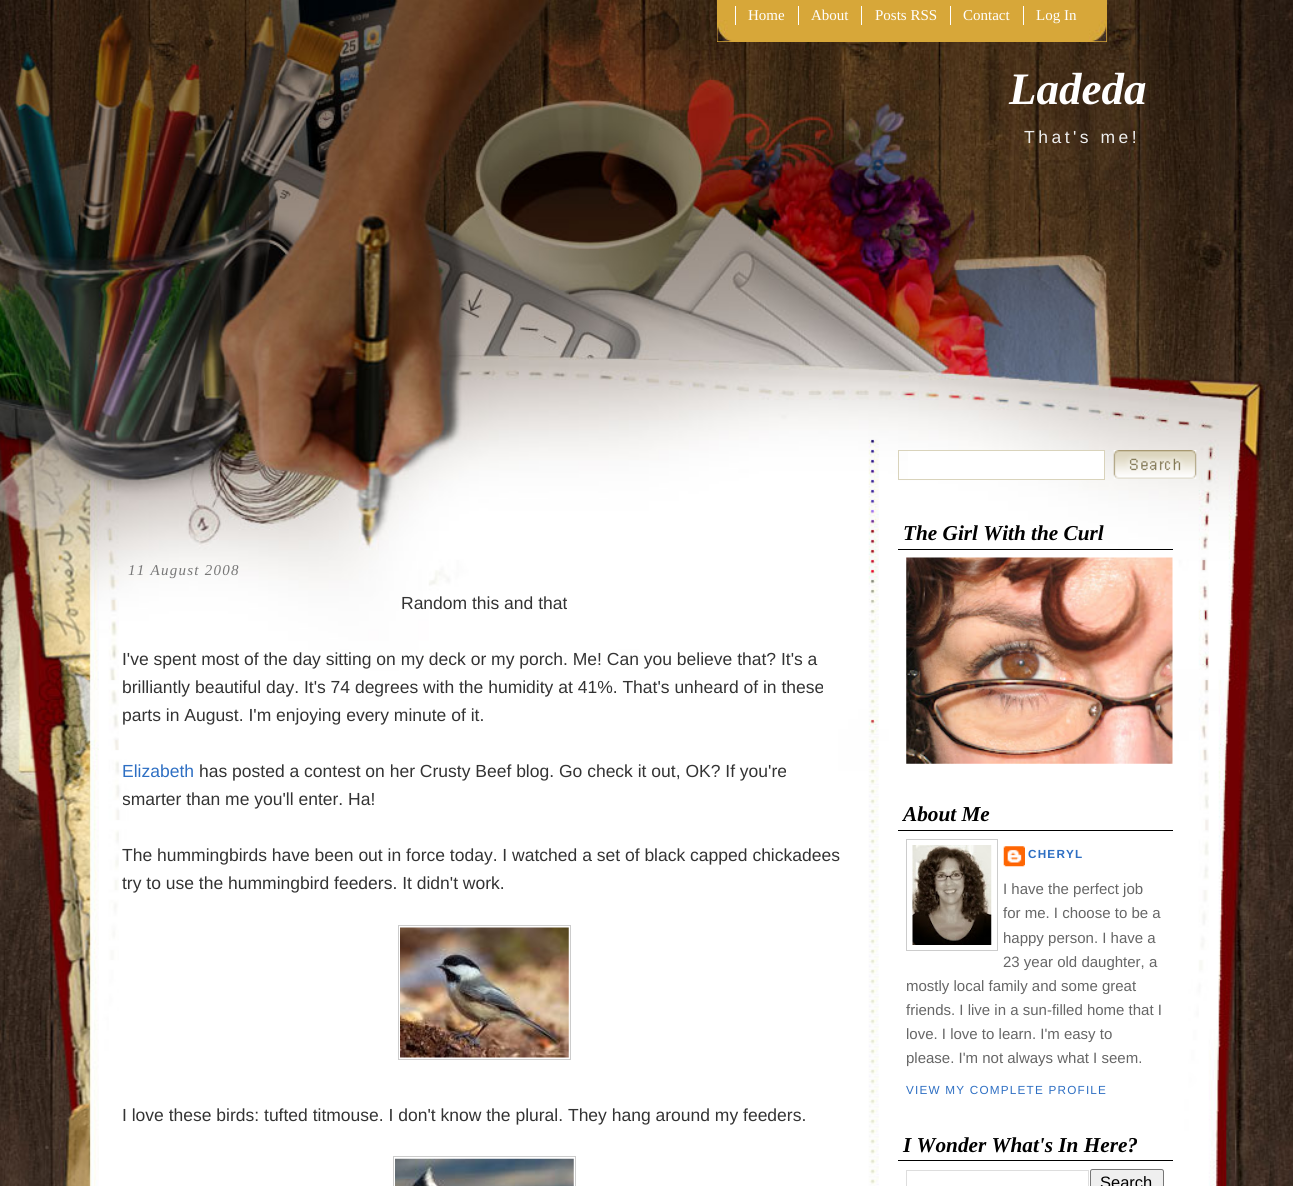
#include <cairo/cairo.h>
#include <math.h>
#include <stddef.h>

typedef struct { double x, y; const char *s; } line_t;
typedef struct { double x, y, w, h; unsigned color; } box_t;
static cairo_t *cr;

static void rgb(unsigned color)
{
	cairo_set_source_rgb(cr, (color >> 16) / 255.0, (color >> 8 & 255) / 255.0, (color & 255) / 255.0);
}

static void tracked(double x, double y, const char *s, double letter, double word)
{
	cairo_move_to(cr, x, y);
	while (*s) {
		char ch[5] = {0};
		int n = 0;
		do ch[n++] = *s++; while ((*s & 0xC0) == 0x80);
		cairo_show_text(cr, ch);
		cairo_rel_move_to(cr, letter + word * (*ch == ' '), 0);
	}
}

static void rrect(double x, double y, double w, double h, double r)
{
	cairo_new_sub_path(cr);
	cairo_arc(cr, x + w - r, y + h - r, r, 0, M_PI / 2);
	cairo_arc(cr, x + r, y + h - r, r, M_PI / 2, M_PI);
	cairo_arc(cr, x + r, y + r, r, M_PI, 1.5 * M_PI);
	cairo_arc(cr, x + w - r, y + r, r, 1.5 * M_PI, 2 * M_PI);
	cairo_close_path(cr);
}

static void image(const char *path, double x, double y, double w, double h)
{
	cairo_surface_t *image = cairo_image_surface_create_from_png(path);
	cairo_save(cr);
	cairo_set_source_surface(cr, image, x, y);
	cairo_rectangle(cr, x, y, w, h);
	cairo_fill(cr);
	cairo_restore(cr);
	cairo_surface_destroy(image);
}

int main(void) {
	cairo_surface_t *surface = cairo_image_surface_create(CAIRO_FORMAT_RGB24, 1293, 1186);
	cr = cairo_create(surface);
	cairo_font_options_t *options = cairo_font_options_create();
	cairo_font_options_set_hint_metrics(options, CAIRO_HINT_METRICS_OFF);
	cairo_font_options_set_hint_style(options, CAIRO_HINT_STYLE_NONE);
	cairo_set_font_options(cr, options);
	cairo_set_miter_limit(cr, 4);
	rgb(0xffffff);
	cairo_paint(cr);
	image("img/1.png", 0, 0, 1293, 1186);
	{
		static const box_t items[] = {
			{717, 0, 390, 42, 0xd7a739},
			{735, 6, 1, 19, 0xffffff},
			{798, 6, 1, 19, 0xffffff},
			{861, 6, 1, 19, 0xffffff},
			{950, 6, 1, 19, 0xffffff},
			{1023, 6, 1, 19, 0xffffff},
		};
		for (size_t i = 0; i < sizeof items / sizeof *items; i++) {
			rgb(items[i].color);
			cairo_rectangle(cr, items[i].x, items[i].y, items[i].w, items[i].h);
			cairo_fill(cr);
		}
	}
	image("img/2.png", 717, 20, 18, 22);
	image("img/3.png", 1089, 20, 18, 22);
	cairo_rectangle(cr, 398.5, 925.5, 172, 134);
	rgb(0xcccccc);
	cairo_set_line_width(cr, 1);
	cairo_stroke(cr);
	image("img/4.png", 400, 927, 169, 131);
	cairo_rectangle(cr, 393.5, 1156.5, 182, 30);
	cairo_stroke(cr);
	image("img/5.png", 395, 1158, 179, 28);
	rgb(0xffffff);
	cairo_rectangle(cr, 908, 451, 196, 28);
	cairo_fill(cr);
	cairo_rectangle(cr, 898.5, 450.5, 206, 29);
	rgb(0xd9d3bb);
	cairo_stroke(cr);
	image("img/6.png", 1113, 450, 84, 29);
	rgb(0x000000);
	cairo_rectangle(cr, 898, 549, 275, 1);
	cairo_fill(cr);
	image("img/7.png", 906, 557, 267, 207);
	cairo_rectangle(cr, 898, 830, 275, 1);
	cairo_fill(cr);
	cairo_rectangle(cr, 906.5, 839.5, 91, 111);
	rgb(0xcccccc);
	cairo_stroke(cr);
	image("img/8.png", 912, 845, 80, 100);
	image("img/9.png", 1003, 846, 22, 21);
	rgb(0x000000);
	cairo_rectangle(cr, 898, 1160, 275, 1);
	cairo_fill(cr);
	cairo_rectangle(cr, 906.5, 1170.5, 182, 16);
	rgb(0xdddddd);
	cairo_stroke(cr);
	rgb(0xefefef);
	rrect(1090.5, 1169.5, 73, 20, 2);
	cairo_fill_preserve(cr);
	rgb(0x767676);
	cairo_stroke(cr);
	cairo_select_font_face(cr, "Liberation Serif", CAIRO_FONT_SLANT_NORMAL, CAIRO_FONT_WEIGHT_NORMAL);
	cairo_set_font_size(cr, 15);
	rgb(0xffffff);
	{
		static const line_t items[] = {
			{748, 20, "Home"},
			{811, 20, "About"},
			{875, 20, "Posts RSS"},
			{963, 20, "Contact"},
			{1036, 20, "Log In"},
		};
		for (size_t i = 0; i < sizeof items / sizeof *items; i++) {
			cairo_move_to(cr, items[i].x, items[i].y);
			cairo_show_text(cr, items[i].s);
		}
	}
	cairo_select_font_face(cr, "Liberation Serif", CAIRO_FONT_SLANT_ITALIC, CAIRO_FONT_WEIGHT_BOLD);
	cairo_set_font_size(cr, 45);
	cairo_move_to(cr, 1009, 104);
	cairo_show_text(cr, "Ladeda");
	cairo_select_font_face(cr, "Liberation Sans", CAIRO_FONT_SLANT_NORMAL, CAIRO_FONT_WEIGHT_NORMAL);
	cairo_set_font_size(cr, 17.5);
	rgb(0xeeeeee);
	tracked(1024, 143, "That's me!", 3.5, 0);
	cairo_select_font_face(cr, "Liberation Serif", CAIRO_FONT_SLANT_ITALIC, CAIRO_FONT_WEIGHT_NORMAL);
	cairo_set_font_size(cr, 15);
	rgb(0x777777);
	tracked(128, 575, "11 August 2008", 1.25, 0);
	cairo_select_font_face(cr, "Liberation Sans", CAIRO_FONT_SLANT_NORMAL, CAIRO_FONT_WEIGHT_NORMAL);
	cairo_set_font_size(cr, 17.5);
	rgb(0x333333);
	{
		static const line_t items[] = {
			{401, 609, "Random this and that"},
			{122, 665, "I've spent most of the day sitting on my deck or my porch. Me! Can you believe that? It's a"},
			{122, 693, "brilliantly beautiful day. It's 74 degrees with the humidity at 41%. That's unheard of in these"},
			{122, 721, "parts in August. I'm enjoying every minute of it."},
		};
		for (size_t i = 0; i < sizeof items / sizeof *items; i++) {
			cairo_move_to(cr, items[i].x, items[i].y);
			cairo_show_text(cr, items[i].s);
		}
	}
	rgb(0x2e6fc3);
	cairo_move_to(cr, 122, 777);
	cairo_show_text(cr, "Elizabeth");
	rgb(0x333333);
	cairo_move_to(cr, 199, 777);
	cairo_show_text(cr, "has posted a contest on her Crusty Beef blog. Go check it out, OK? If you're");
	cairo_save(cr);
	cairo_rectangle(cr, 123, 538, 725, 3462);
	cairo_clip(cr);
	cairo_move_to(cr, 122, 805);
	cairo_show_text(cr, "smarter than me you'll enter. Ha!");
	cairo_restore(cr);
	{
		static const line_t items[] = {
			{122, 861, "The hummingbirds have been out in force today. I watched a set of black capped chickadees"},
			{122, 889, "try to use the hummingbird feeders. It didn't work."},
			{122, 1121, "I love these birds: tufted titmouse. I don't know the plural. They hang around my feeders."},
		};
		for (size_t i = 0; i < sizeof items / sizeof *items; i++) {
			cairo_move_to(cr, items[i].x, items[i].y);
			cairo_show_text(cr, items[i].s);
		}
	}
	cairo_select_font_face(cr, "Liberation Serif", CAIRO_FONT_SLANT_ITALIC, CAIRO_FONT_WEIGHT_BOLD);
	cairo_set_font_size(cr, 21.25);
	rgb(0x000000);
	cairo_move_to(cr, 903, 540);
	cairo_show_text(cr, "The Girl With the Curl");
	cairo_move_to(cr, 903, 821);
	cairo_show_text(cr, "About Me");
	cairo_select_font_face(cr, "Liberation Sans", CAIRO_FONT_SLANT_NORMAL, CAIRO_FONT_WEIGHT_BOLD);
	cairo_set_font_size(cr, 11.75);
	rgb(0x2e6fc3);
	tracked(1028, 858, "CHERYL", 1.2, 0);
	cairo_select_font_face(cr, "Liberation Sans", CAIRO_FONT_SLANT_NORMAL, CAIRO_FONT_WEIGHT_NORMAL);
	cairo_set_font_size(cr, 15);
	rgb(0x666666);
	{
		static const line_t items[] = {
			{1003, 894, "I have the perfect job"},
			{1003, 918, "for me. I choose to be a"},
			{1003, 943, "happy person. I have a"},
			{1003, 967, "23 year old daughter, a"},
			{906, 991, "mostly local family and some great"},
			{906, 1015, "friends. I live in a sun-filled home that I"},
			{906, 1039, "love. I love to learn. I'm easy to"},
			{906, 1063, "please. I'm not always what I seem."},
		};
		for (size_t i = 0; i < sizeof items / sizeof *items; i++) {
			cairo_move_to(cr, items[i].x, items[i].y);
			cairo_show_text(cr, items[i].s);
		}
	}
	cairo_set_font_size(cr, 11.75);
	rgb(0x2e6fc3);
	tracked(906, 1094, "VIEW MY COMPLETE PROFILE", 1.2, 0);
	cairo_select_font_face(cr, "Liberation Serif", CAIRO_FONT_SLANT_ITALIC, CAIRO_FONT_WEIGHT_BOLD);
	cairo_set_font_size(cr, 21.25);
	rgb(0x000000);
	cairo_move_to(cr, 903, 1152);
	cairo_show_text(cr, "I Wonder What's In Here?");
	cairo_select_font_face(cr, "Liberation Sans", CAIRO_FONT_SLANT_NORMAL, CAIRO_FONT_WEIGHT_NORMAL);
	cairo_set_font_size(cr, 16.5);
	cairo_move_to(cr, 1100, 1188);
	cairo_show_text(cr, "Search");
	cairo_surface_write_to_png(surface, "page.png");
	cairo_font_options_destroy(options);
	cairo_destroy(cr);
	cairo_surface_destroy(surface);
	return 0;
}
